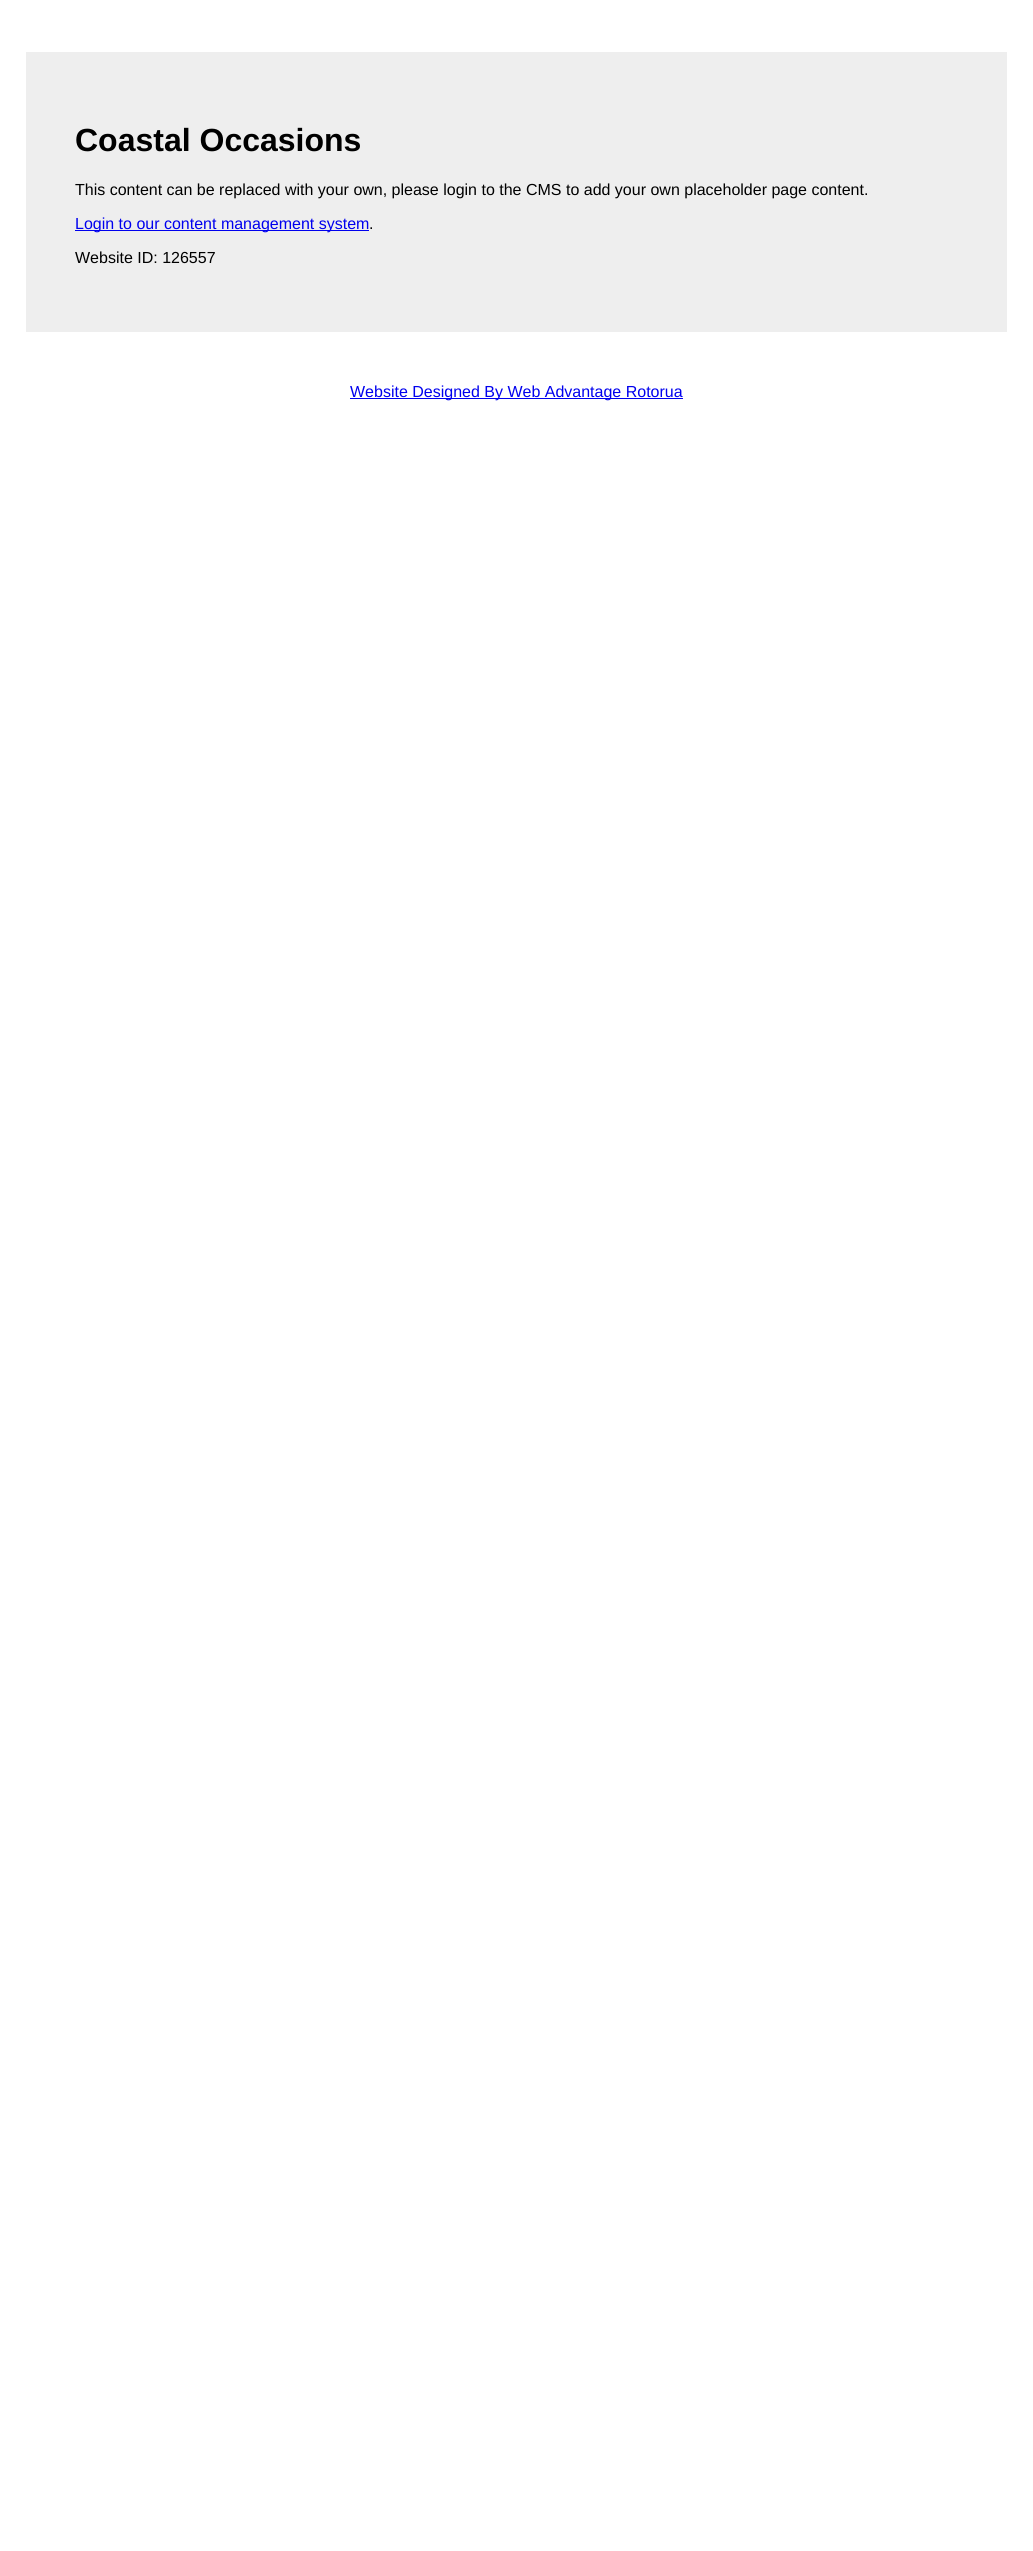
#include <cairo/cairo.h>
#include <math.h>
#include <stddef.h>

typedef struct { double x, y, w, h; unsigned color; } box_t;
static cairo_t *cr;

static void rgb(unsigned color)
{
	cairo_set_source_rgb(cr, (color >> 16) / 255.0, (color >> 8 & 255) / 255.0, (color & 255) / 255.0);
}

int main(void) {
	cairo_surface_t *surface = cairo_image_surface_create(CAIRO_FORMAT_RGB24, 1033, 2551);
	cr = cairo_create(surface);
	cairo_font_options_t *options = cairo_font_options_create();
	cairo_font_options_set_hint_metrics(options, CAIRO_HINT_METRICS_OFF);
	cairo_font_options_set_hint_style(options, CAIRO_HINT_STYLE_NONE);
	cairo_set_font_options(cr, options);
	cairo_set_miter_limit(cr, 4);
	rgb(0xffffff);
	cairo_paint(cr);
	{
		static const box_t items[] = {
			{26, 52, 981, 280, 0xeeeeee},
			{75, 230, 294, 1, 0x0000ee},
			{350, 398, 333, 1, 0x0000ee},
		};
		for (size_t i = 0; i < sizeof items / sizeof *items; i++) {
			rgb(items[i].color);
			cairo_rectangle(cr, items[i].x, items[i].y, items[i].w, items[i].h);
			cairo_fill(cr);
		}
	}
	cairo_select_font_face(cr, "Liberation Sans", CAIRO_FONT_SLANT_NORMAL, CAIRO_FONT_WEIGHT_BOLD);
	cairo_set_font_size(cr, 32);
	rgb(0x000000);
	cairo_move_to(cr, 75, 151);
	cairo_show_text(cr, "Coastal Occasions");
	cairo_select_font_face(cr, "Liberation Sans", CAIRO_FONT_SLANT_NORMAL, CAIRO_FONT_WEIGHT_NORMAL);
	cairo_set_font_size(cr, 16);
	cairo_move_to(cr, 75, 195);
	cairo_show_text(cr, "This content can be replaced with your own, please login to the CMS to add your own placeholder page content.");
	rgb(0x0000ee);
	cairo_move_to(cr, 75, 229);
	cairo_show_text(cr, "Login to our content management system");
	rgb(0x000000);
	cairo_move_to(cr, 369, 229);
	cairo_show_text(cr, ".");
	cairo_move_to(cr, 75, 263);
	cairo_show_text(cr, "Website ID: 126557");
	rgb(0x0000ee);
	cairo_move_to(cr, 350, 397);
	cairo_show_text(cr, "Website Designed By Web Advantage Rotorua");
	cairo_surface_write_to_png(surface, "page.png");
	cairo_font_options_destroy(options);
	cairo_destroy(cr);
	cairo_surface_destroy(surface);
	return 0;
}
